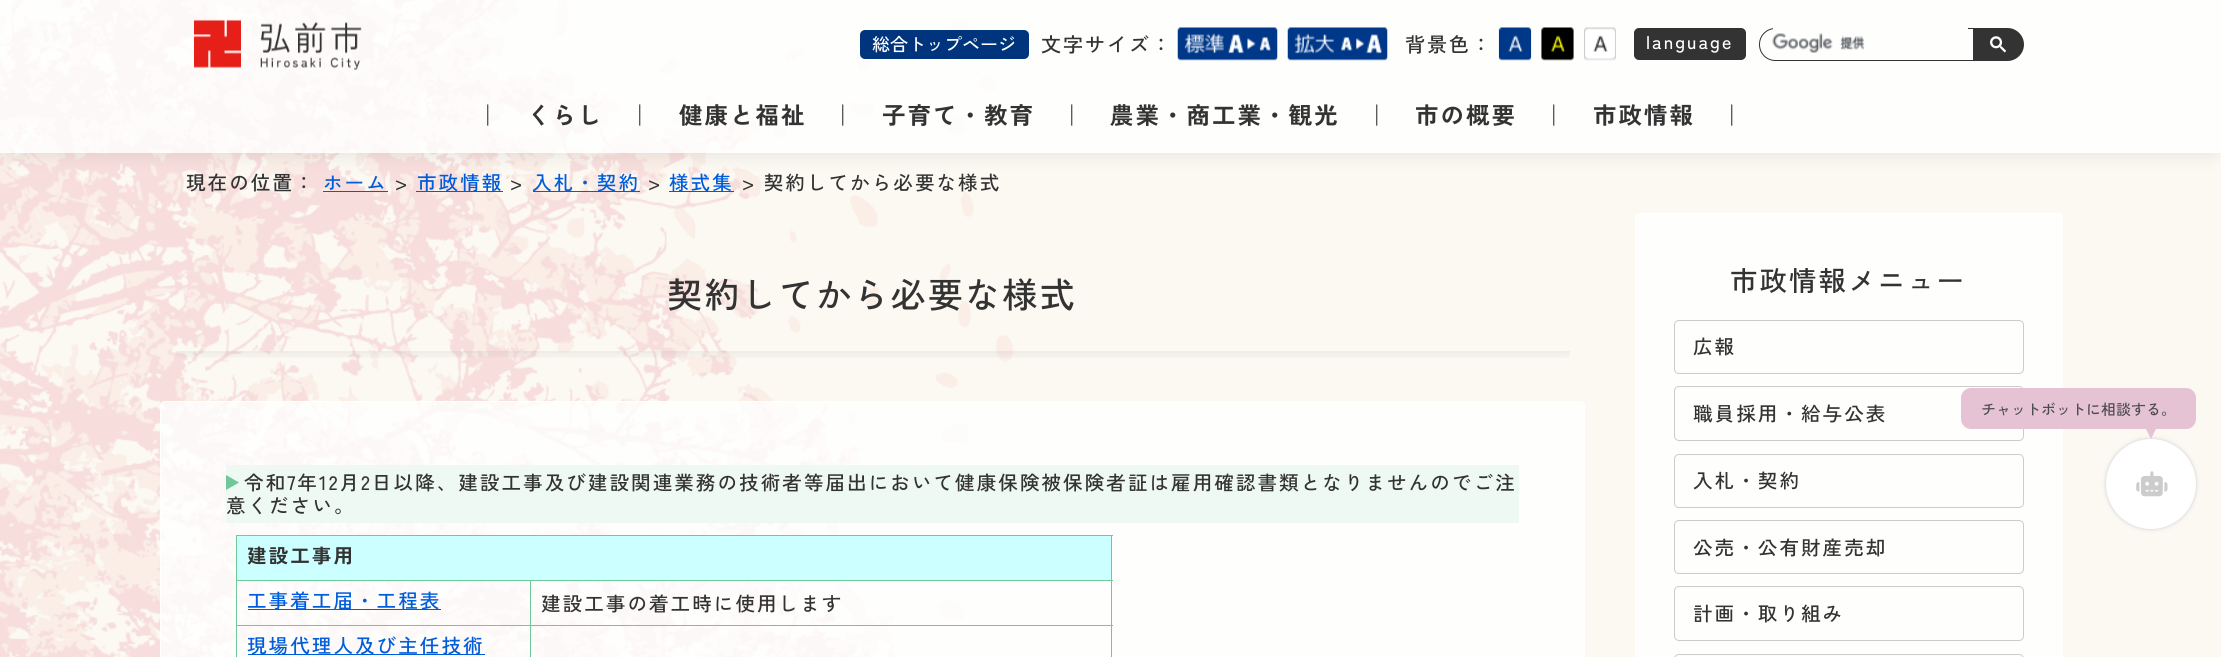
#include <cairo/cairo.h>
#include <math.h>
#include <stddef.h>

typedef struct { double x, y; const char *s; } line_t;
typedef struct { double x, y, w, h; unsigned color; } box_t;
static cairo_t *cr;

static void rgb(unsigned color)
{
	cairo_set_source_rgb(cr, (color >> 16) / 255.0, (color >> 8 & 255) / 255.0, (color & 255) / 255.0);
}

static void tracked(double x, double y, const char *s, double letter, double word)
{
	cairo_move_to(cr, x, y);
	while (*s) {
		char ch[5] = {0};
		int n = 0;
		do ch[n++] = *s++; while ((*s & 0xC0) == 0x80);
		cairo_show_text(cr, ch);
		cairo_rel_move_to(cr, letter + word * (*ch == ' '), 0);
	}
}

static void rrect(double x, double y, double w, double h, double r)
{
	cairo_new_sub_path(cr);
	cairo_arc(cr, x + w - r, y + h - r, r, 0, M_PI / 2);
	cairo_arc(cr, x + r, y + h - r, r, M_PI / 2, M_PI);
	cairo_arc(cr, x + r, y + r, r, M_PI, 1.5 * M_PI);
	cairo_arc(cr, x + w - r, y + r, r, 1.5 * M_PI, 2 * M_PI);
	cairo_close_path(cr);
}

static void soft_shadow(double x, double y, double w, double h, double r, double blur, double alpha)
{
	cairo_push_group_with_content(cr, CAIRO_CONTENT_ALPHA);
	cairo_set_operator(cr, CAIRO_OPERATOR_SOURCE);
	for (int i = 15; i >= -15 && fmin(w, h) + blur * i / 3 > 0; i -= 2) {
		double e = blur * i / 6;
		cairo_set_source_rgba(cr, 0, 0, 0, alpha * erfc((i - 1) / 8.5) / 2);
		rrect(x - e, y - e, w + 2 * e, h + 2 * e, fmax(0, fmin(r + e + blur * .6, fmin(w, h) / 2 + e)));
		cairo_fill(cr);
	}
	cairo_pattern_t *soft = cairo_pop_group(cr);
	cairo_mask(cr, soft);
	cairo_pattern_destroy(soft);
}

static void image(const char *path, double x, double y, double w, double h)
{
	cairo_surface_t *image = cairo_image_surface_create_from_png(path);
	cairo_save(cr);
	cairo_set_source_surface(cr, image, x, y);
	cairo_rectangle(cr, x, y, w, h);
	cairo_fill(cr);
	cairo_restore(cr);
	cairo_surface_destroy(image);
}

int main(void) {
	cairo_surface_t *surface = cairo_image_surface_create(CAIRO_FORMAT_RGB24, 2221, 657);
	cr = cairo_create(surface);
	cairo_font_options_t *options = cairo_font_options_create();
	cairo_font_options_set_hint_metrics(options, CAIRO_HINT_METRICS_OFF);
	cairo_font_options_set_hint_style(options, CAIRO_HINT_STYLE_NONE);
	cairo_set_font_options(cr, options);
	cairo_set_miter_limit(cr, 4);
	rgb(0xfcf9f3);
	cairo_paint(cr);
	image("img/1.png", 0, 0, 1014, 657);
	cairo_set_source_rgba(cr, 1, 1, 1, 0.8);
	cairo_rectangle(cr, 0, 0, 2221, 75);
	cairo_fill(cr);
	image("img/2.png", 194, 19, 168, 51);
	rgb(0x00357e);
	rrect(860, 30, 169, 29, 5);
	cairo_fill(cr);
	image("img/3.png", 1177, 27, 101, 34);
	image("img/4.png", 1287, 27, 101, 34);
	image("img/5.png", 1498, 27, 34, 34);
	image("img/6.png", 1541, 27, 33, 34);
	image("img/7.png", 1584, 27, 32, 34);
	rgb(0x333333);
	rrect(1634, 28, 112, 32, 5);
	cairo_fill(cr);
	cairo_new_path(cr);
	cairo_move_to(cr, 1775.5, 28.5);
	cairo_line_to(cr, 1973.5, 28.5);
	cairo_line_to(cr, 1973.5, 60.5);
	cairo_line_to(cr, 1775.5, 60.5);
	cairo_curve_to(cr, 1766.5, 60.5, 1759.5, 53.5, 1759.5, 44.5);
	cairo_curve_to(cr, 1759.5, 35.5, 1766.5, 28.5, 1775.5, 28.5);
	cairo_close_path(cr);
	cairo_set_line_width(cr, 1);
	cairo_stroke(cr);
	rgb(0xffffff);
	cairo_rectangle(cr, 1773, 28, 195, 2);
	cairo_fill(cr);
	image("img/8.png", 1772, 33, 93, 20);
	rgb(0x333333);
	cairo_new_path(cr);
	cairo_move_to(cr, 1974, 28);
	cairo_line_to(cr, 2007.5, 28);
	cairo_curve_to(cr, 2016.5, 28, 2024, 35.5, 2024, 44.5);
	cairo_curve_to(cr, 2024, 53.5, 2016.5, 61, 2007.5, 61);
	cairo_line_to(cr, 1974, 61);
	cairo_close_path(cr);
	cairo_fill(cr);
	image("img/9.png", 1990, 36, 16, 17);
	cairo_save(cr);
	cairo_set_fill_rule(cr, CAIRO_FILL_RULE_EVEN_ODD);
	cairo_new_path(cr);
	cairo_move_to(cr, 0, 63);
	cairo_line_to(cr, 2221, 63);
	cairo_line_to(cr, 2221, 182);
	cairo_line_to(cr, 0, 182);
	cairo_close_path(cr);
	cairo_move_to(cr, 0, 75);
	cairo_line_to(cr, 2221, 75);
	cairo_line_to(cr, 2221, 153);
	cairo_line_to(cr, 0, 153);
	cairo_close_path(cr);
	cairo_clip(cr);
	rgb(0x000000);
	soft_shadow(8, 91, 2206, 63, 0, 9, 0.1);
	cairo_restore(cr);
	cairo_set_source_rgba(cr, 1, 1, 1, 0.8);
	cairo_rectangle(cr, 0, 75, 2221, 78);
	cairo_fill(cr);
	rgb(0x005cd9);
	cairo_rectangle(cr, 323, 191, 65, 1);
	cairo_fill(cr);
	cairo_rectangle(cr, 416, 191, 87, 1);
	cairo_fill(cr);
	cairo_rectangle(cr, 533, 191, 107, 1);
	cairo_fill(cr);
	cairo_rectangle(cr, 669, 191, 65, 1);
	cairo_fill(cr);
	cairo_save(cr);
	cairo_rectangle(cr, 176, 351, 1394, 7);
	cairo_clip(cr);
	rgb(0x000000);
	soft_shadow(178, 266, 1390, 80, 0, 9, 0.2);
	cairo_restore(cr);
	cairo_set_source_rgba(cr, 1, 1, 1, 0.8);
	rrect(160.5, 401.5, 1424, 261, 4.5);
	cairo_fill_preserve(cr);
	rgb(0xffffff);
	cairo_stroke(cr);
	rgb(0xeff9f4);
	cairo_rectangle(cr, 226, 465, 1293, 58);
	cairo_fill(cr);
	rgb(0x6fc897);
	cairo_new_path(cr);
	cairo_move_to(cr, 226, 490);
	cairo_line_to(cr, 226, 475);
	cairo_line_to(cr, 239, 482.5);
	cairo_close_path(cr);
	cairo_fill(cr);
	{
		static const box_t items[] = {
			{237, 536, 874, 44, 0xccffff},
			{236, 535, 877, 1, 0x6fc897},
			{530, 580, 583, 1, 0x6fc897},
			{530, 625, 583, 1, 0x6fc897},
			{1111, 625, 1, 32, 0x6fc897},
			{1111, 580, 1, 46, 0x6fc897},
			{1111, 535, 1, 46, 0x6fc897},
			{530, 625, 1, 32, 0x6fc897},
			{236, 625, 295, 1, 0x6fc897},
			{530, 580, 1, 46, 0x6fc897},
			{236, 580, 295, 1, 0x6fc897},
			{236, 625, 1, 32, 0x6fc897},
			{236, 580, 1, 46, 0x6fc897},
			{236, 535, 1, 46, 0x6fc897},
			{248, 609, 193, 1, 0x005cd9},
			{248, 654, 237, 1, 0x005cd9},
		};
		for (size_t i = 0; i < sizeof items / sizeof *items; i++) {
			rgb(items[i].color);
			cairo_rectangle(cr, items[i].x, items[i].y, items[i].w, items[i].h);
			cairo_fill(cr);
		}
	}
	cairo_set_source_rgba(cr, 1, 1, 1, 0.8);
	rrect(1635.5, 213.5, 427, 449, 4.5);
	cairo_fill_preserve(cr);
	rgb(0xffffff);
	cairo_stroke(cr);
	rrect(1674.5, 320.5, 349, 53, 4.5);
	rgb(0xcccccc);
	cairo_stroke(cr);
	rrect(1674.5, 386.5, 349, 54, 4.5);
	cairo_stroke(cr);
	rrect(1674.5, 454.5, 349, 53, 4.5);
	cairo_stroke(cr);
	rrect(1674.5, 520.5, 349, 53, 4.5);
	cairo_stroke(cr);
	rrect(1674.5, 586.5, 349, 54, 4.5);
	cairo_stroke(cr);
	rrect(1674.5, 654.5, 349, 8, 4.5);
	cairo_stroke(cr);
	rgb(0xcccccc);
	soft_shadow(2106, 439, 90, 90, 45, 2, 1);
	rgb(0xffffff);
	cairo_arc(cr, 2151, 484, 45, 0, 2 * M_PI);
	cairo_fill(cr);
	rgb(0xe5c3d5);
	rrect(1961, 388, 235, 41, 10);
	cairo_fill(cr);
	cairo_new_path(cr);
	cairo_move_to(cr, 2146, 429);
	cairo_line_to(cr, 2156, 429);
	cairo_line_to(cr, 2151, 439);
	cairo_close_path(cr);
	cairo_fill(cr);
	image("img/10.png", 2136, 471, 32, 26);
	cairo_select_font_face(cr, "Zen Kaku Gothic New Medium", CAIRO_FONT_SLANT_NORMAL, CAIRO_FONT_WEIGHT_NORMAL);
	cairo_set_font_size(cr, 18);
	rgb(0xffffff);
	cairo_move_to(cr, 872, 51);
	cairo_show_text(cr, "総合トップページ");
	cairo_set_font_size(cr, 20);
	rgb(0x333333);
	tracked(1041, 52, "文字サイズ：", 2, 0);
	tracked(1405, 52, "背景色：", 2, 0);
	cairo_set_font_size(cr, 18);
	rgb(0xffffff);
	tracked(1646, 49, "language", 2, 0);
	cairo_select_font_face(cr, "Zen Kaku Gothic New", CAIRO_FONT_SLANT_NORMAL, CAIRO_FONT_WEIGHT_BOLD);
	cairo_set_font_size(cr, 23.5);
	rgb(0x333333);
	{
		static const line_t items[] = {
			{476, 124, "｜"},
			{527, 124, "くらし"},
			{628, 124, "｜"},
			{679, 124, "健康と福祉"},
			{831, 124, "｜"},
			{882, 124, "子育て・教育"},
			{1060, 124, "｜"},
			{1110, 124, "農業・商工業・観光"},
			{1365, 124, "｜"},
			{1415, 124, "市の概要"},
			{1542, 124, "｜"},
			{1593, 124, "市政情報"},
			{1720, 124, "｜"},
		};
		for (size_t i = 0; i < sizeof items / sizeof *items; i++) {
			tracked(items[i].x, items[i].y, items[i].s, 2, 0);
		}
	}
	cairo_select_font_face(cr, "Zen Kaku Gothic New Medium", CAIRO_FONT_SLANT_NORMAL, CAIRO_FONT_WEIGHT_NORMAL);
	cairo_set_font_size(cr, 19.6);
	tracked(186, 190, "現在の位置：", 2, 0);
	rgb(0x005cd9);
	tracked(323, 190, "ホーム", 2, 0);
	rgb(0x333333);
	tracked(395, 190, ">", 2, 0);
	rgb(0x005cd9);
	tracked(417, 190, "市政情報", 2, 0);
	rgb(0x333333);
	tracked(510, 190, ">", 2, 0);
	rgb(0x005cd9);
	tracked(532, 190, "入札・契約", 2, 0);
	rgb(0x333333);
	tracked(648, 190, ">", 2, 0);
	rgb(0x005cd9);
	tracked(669, 190, "様式集", 2, 0);
	rgb(0x333333);
	tracked(742, 190, "> 契約してから必要な様式", 2, 0);
	cairo_set_font_size(cr, 35.25);
	tracked(667, 308, "契約してから必要な様式", 2, 0);
	cairo_set_font_size(cr, 19.6);
	tracked(244, 490, "令和7年12月2日以降、建設工事及び建設関連業務の技術者等届出において健康保険被保険者証は雇用確認書類となりませんのでご注", 2, 0);
	tracked(226, 513, "意ください。", 2, 0);
	cairo_select_font_face(cr, "Zen Kaku Gothic New", CAIRO_FONT_SLANT_NORMAL, CAIRO_FONT_WEIGHT_BOLD);
	tracked(247, 563, "建設工事用", 2, 0);
	cairo_select_font_face(cr, "Zen Kaku Gothic New Medium", CAIRO_FONT_SLANT_NORMAL, CAIRO_FONT_WEIGHT_NORMAL);
	rgb(0x005cd9);
	tracked(247, 608, "工事着工届・工程表", 2, 0);
	rgb(0x333333);
	tracked(541, 611, "建設工事の着工時に使用します", 2, 0);
	rgb(0x005cd9);
	tracked(247, 653, "現場代理人及び主任技術", 2, 0);
	cairo_set_font_size(cr, 27.5);
	rgb(0x333333);
	tracked(1730, 291, "市政情報メニュー", 2, 0);
	cairo_set_font_size(cr, 19.6);
	{
		static const line_t items[] = {
			{1693, 354, "広報"},
			{1693, 421, "職員採用・給与公表"},
			{1693, 488, "入札・契約"},
			{1693, 555, "公売・公有財産売却"},
			{1693, 621, "計画・取り組み"},
		};
		for (size_t i = 0; i < sizeof items / sizeof *items; i++) {
			tracked(items[i].x, items[i].y, items[i].s, 2, 0);
		}
	}
	cairo_set_font_size(cr, 15);
	rgb(0x4d4d4d);
	cairo_move_to(cr, 1981, 415);
	cairo_show_text(cr, "チャットボットに相談する。");
	cairo_surface_write_to_png(surface, "page.png");
	cairo_font_options_destroy(options);
	cairo_destroy(cr);
	cairo_surface_destroy(surface);
	return 0;
}
